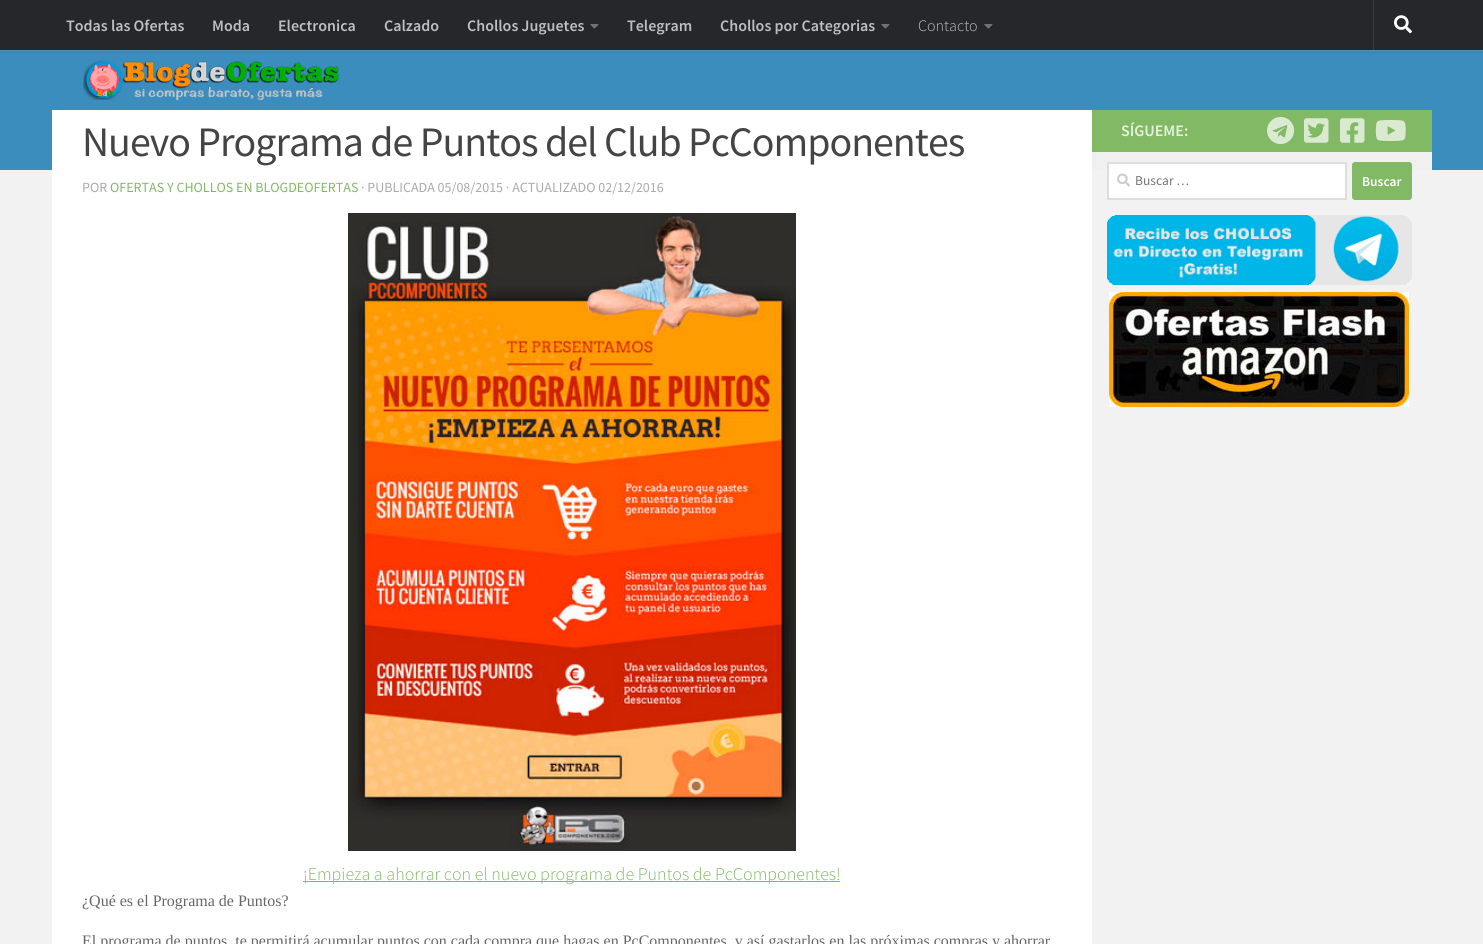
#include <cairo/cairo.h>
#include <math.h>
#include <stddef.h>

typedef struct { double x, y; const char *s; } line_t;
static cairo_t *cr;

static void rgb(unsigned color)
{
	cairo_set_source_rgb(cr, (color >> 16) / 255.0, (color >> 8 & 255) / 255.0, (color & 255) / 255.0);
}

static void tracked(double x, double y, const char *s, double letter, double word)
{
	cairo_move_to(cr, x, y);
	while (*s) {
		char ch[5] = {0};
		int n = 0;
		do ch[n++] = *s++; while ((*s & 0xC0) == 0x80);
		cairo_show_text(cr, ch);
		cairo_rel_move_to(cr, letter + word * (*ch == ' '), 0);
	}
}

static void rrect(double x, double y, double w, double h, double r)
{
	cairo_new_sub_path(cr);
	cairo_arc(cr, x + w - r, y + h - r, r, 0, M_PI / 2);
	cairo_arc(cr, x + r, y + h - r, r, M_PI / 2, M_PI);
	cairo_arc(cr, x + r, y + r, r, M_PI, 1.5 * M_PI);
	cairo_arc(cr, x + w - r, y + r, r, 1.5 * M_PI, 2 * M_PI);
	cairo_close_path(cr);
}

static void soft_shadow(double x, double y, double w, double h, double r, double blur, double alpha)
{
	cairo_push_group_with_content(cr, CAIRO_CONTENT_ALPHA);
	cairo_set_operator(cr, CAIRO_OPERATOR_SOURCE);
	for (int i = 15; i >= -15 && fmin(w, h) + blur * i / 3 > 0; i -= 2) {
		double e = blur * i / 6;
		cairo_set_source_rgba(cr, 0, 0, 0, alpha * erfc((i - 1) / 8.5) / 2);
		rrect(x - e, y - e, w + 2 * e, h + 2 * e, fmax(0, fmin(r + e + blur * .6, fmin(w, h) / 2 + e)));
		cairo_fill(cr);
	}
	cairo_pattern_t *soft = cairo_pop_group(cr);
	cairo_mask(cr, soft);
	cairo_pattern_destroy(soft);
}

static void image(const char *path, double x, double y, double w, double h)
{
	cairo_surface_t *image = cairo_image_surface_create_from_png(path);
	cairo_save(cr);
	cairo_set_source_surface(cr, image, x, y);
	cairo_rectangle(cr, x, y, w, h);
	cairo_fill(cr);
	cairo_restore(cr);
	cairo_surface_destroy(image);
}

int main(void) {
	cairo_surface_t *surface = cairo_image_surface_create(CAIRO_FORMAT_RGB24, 1483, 944);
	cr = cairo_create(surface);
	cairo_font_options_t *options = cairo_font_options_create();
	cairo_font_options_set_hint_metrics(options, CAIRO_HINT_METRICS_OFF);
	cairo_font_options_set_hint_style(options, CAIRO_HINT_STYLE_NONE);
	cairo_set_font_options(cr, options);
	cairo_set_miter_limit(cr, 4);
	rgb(0xf2f2f2);
	cairo_paint(cr);
	rgb(0x3b8dbd);
	cairo_rectangle(cr, 0, 51, 1483, 119);
	cairo_fill(cr);
	rgb(0x589ec7);
	cairo_rectangle(cr, 0, 50, 1483, 1);
	cairo_fill(cr);
	rgb(0x000000);
	soft_shadow(0, 0, 1483, 50, 0, 2.5, 0.2);
	rgb(0x26272b);
	cairo_rectangle(cr, 0, 0, 1483, 50);
	cairo_fill(cr);
	image("img/1.png", 590, 24, 9, 5);
	image("img/1.png", 881, 24, 9, 5);
	image("img/1.png", 984, 24, 9, 5);
	rgb(0x3c3d40);
	cairo_rectangle(cr, 1373, 0, 1, 50);
	cairo_fill(cr);
	image("img/2.png", 1394, 15, 18, 19);
	image("img/3.png", 83, 60, 257, 40);
	rgb(0xffffff);
	cairo_rectangle(cr, 52, 110, 1040, 834);
	cairo_fill(cr);
	image("img/4.png", 348, 213, 448, 638);
	rgb(0x82b965);
	cairo_rectangle(cr, 303, 881, 537, 1);
	cairo_fill(cr);
	cairo_rectangle(cr, 1092, 110, 340, 42);
	cairo_fill(cr);
	image("img/5.png", 1267, 116, 28, 29);
	image("img/6.png", 1304, 118, 25, 25);
	image("img/7.png", 1340, 118, 25, 25);
	image("img/8.png", 1375, 120, 31, 21);
	rgb(0xf0f0f0);
	cairo_rectangle(cr, 1092, 152, 340, 18);
	cairo_fill(cr);
	rgb(0xffffff);
	cairo_rectangle(cr, 1108, 163, 238, 36);
	cairo_fill_preserve(cr);
	rgb(0xdddddd);
	cairo_stroke(cr);
	image("img/9.png", 1117, 173, 13, 14);
	rgb(0x82b965);
	rrect(1352, 162, 60, 38, 3);
	cairo_fill(cr);
	image("img/10.png", 1107, 215, 305, 70);
	image("img/11.png", 1109, 292, 300, 115);
	cairo_select_font_face(cr, "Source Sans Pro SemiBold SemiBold", CAIRO_FONT_SLANT_NORMAL, CAIRO_FONT_WEIGHT_NORMAL);
	cairo_set_font_size(cr, 16);
	rgb(0xbebebf);
	{
		static const line_t items[] = {
			{66, 31, "Todas las Ofertas"},
			{212, 31, "Moda"},
			{278, 31, "Electronica"},
			{384, 31, "Calzado"},
			{467, 31, "Chollos Juguetes"},
			{627, 31, "Telegram"},
			{720, 31, "Chollos por Categorias"},
		};
		for (size_t i = 0; i < sizeof items / sizeof *items; i++) {
			cairo_move_to(cr, items[i].x, items[i].y);
			cairo_show_text(cr, items[i].s);
		}
	}
	cairo_select_font_face(cr, "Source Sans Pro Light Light", CAIRO_FONT_SLANT_NORMAL, CAIRO_FONT_WEIGHT_NORMAL);
	cairo_move_to(cr, 918, 31);
	cairo_show_text(cr, "Contacto");
	cairo_select_font_face(cr, "Source Sans Pro", CAIRO_FONT_SLANT_NORMAL, CAIRO_FONT_WEIGHT_NORMAL);
	cairo_set_font_size(cr, 41.9);
	rgb(0x444444);
	tracked(82, 156, "Nuevo Programa de Puntos del Club PcComponentes", -1, 0);
	cairo_set_font_size(cr, 14);
	rgb(0xaaaaaa);
	cairo_move_to(cr, 82, 192);
	cairo_show_text(cr, "POR");
	rgb(0x82b965);
	cairo_move_to(cr, 110, 192);
	cairo_show_text(cr, "OFERTAS Y CHOLLOS EN BLOGDEOFERTAS");
	rgb(0xaaaaaa);
	cairo_move_to(cr, 361, 192);
	cairo_show_text(cr, "· PUBLICADA 05/08/2015 · ACTUALIZADO 02/12/2016");
	cairo_select_font_face(cr, "Source Sans Pro Light Light", CAIRO_FONT_SLANT_NORMAL, CAIRO_FONT_WEIGHT_NORMAL);
	cairo_set_font_size(cr, 18);
	rgb(0x82b965);
	cairo_move_to(cr, 303, 880);
	cairo_show_text(cr, "¡Empieza a ahorrar con el nuevo programa de Puntos de PcComponentes!");
	cairo_select_font_face(cr, "Liberation Serif", CAIRO_FONT_SLANT_NORMAL, CAIRO_FONT_WEIGHT_NORMAL);
	cairo_set_font_size(cr, 16);
	rgb(0x666666);
	cairo_move_to(cr, 82, 906);
	cairo_show_text(cr, "¿Qué es el Programa de Puntos?");
	cairo_move_to(cr, 82, 946);
	cairo_show_text(cr, "El programa de puntos, te permitirá acumular puntos con cada compra que hagas en PcComponentes. y así gastarlos en las próximas compras y ahorrar");
	cairo_select_font_face(cr, "Source Sans Pro SemiBold SemiBold", CAIRO_FONT_SLANT_NORMAL, CAIRO_FONT_WEIGHT_NORMAL);
	rgb(0xe6f1e0);
	cairo_move_to(cr, 1121, 136);
	cairo_show_text(cr, "SÍGUEME:");
	cairo_select_font_face(cr, "Source Sans Pro", CAIRO_FONT_SLANT_NORMAL, CAIRO_FONT_WEIGHT_NORMAL);
	cairo_set_font_size(cr, 13.5);
	rgb(0x757575);
	cairo_move_to(cr, 1135, 185);
	cairo_show_text(cr, "Buscar …");
	cairo_select_font_face(cr, "Source Sans Pro SemiBold SemiBold", CAIRO_FONT_SLANT_NORMAL, CAIRO_FONT_WEIGHT_NORMAL);
	rgb(0xffffff);
	cairo_move_to(cr, 1362, 186);
	cairo_show_text(cr, "Buscar");
	cairo_surface_write_to_png(surface, "page.png");
	cairo_font_options_destroy(options);
	cairo_destroy(cr);
	cairo_surface_destroy(surface);
	return 0;
}
